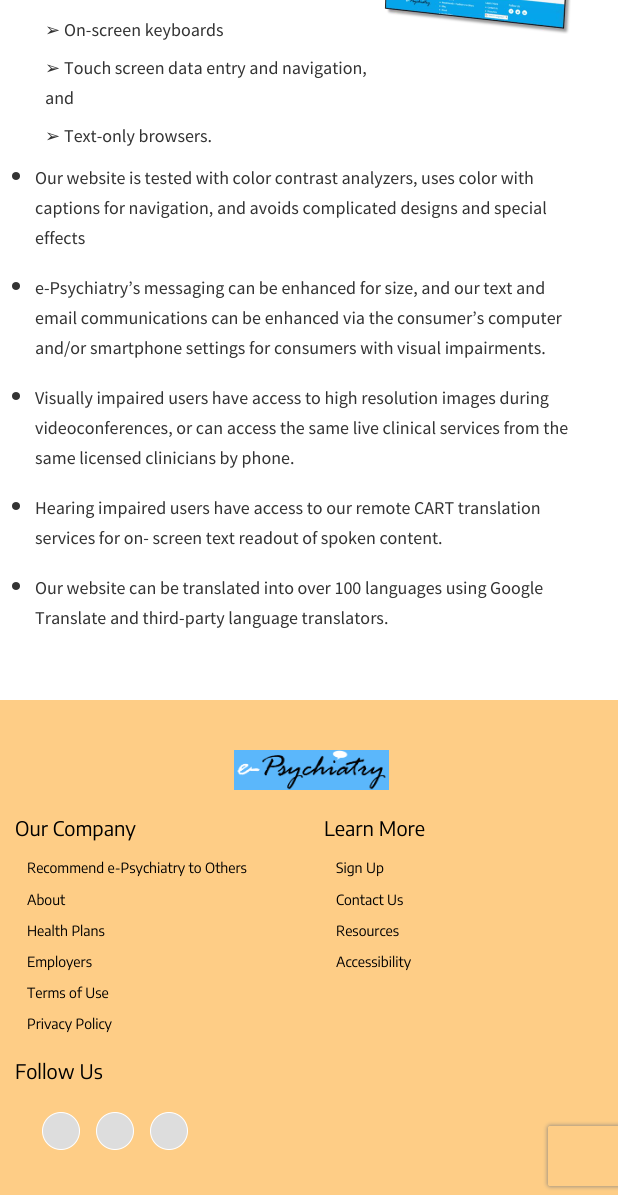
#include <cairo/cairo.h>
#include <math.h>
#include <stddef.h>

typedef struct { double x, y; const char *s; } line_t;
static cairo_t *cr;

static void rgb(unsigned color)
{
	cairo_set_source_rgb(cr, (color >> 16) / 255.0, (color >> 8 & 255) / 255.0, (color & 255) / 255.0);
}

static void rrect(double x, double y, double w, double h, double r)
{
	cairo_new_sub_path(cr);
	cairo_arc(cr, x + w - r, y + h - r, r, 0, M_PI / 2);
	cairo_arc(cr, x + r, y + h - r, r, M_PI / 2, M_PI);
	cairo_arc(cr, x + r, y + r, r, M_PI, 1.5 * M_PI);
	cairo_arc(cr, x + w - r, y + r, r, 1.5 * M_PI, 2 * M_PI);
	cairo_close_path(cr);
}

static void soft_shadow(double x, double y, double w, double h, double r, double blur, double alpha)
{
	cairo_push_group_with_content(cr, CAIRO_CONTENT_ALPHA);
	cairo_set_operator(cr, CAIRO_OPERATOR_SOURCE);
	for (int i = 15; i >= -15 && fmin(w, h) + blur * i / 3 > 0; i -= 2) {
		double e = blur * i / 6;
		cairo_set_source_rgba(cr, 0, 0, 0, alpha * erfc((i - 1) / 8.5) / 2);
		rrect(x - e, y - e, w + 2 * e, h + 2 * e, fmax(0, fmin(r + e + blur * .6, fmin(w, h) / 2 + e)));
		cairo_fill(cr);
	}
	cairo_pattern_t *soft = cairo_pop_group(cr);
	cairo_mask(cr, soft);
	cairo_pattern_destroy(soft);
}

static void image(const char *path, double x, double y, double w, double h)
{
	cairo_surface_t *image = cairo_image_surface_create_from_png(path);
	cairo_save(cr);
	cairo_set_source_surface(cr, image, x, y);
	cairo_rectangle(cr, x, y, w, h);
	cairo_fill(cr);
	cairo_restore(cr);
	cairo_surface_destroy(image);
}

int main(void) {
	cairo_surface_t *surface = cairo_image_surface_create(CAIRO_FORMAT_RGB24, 618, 1200);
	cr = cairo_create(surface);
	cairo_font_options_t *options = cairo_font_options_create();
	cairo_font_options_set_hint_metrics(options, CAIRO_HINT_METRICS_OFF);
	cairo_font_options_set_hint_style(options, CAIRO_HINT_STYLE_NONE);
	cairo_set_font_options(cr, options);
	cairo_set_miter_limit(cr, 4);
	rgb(0xffffff);
	cairo_paint(cr);
	image("img/1.png", 384, 0, 187, 34);
	rgb(0x333333);
	cairo_arc(cr, 16, 176, 4, 0, 2 * M_PI);
	cairo_fill(cr);
	cairo_arc(cr, 16, 286, 4, 0, 2 * M_PI);
	cairo_fill(cr);
	cairo_arc(cr, 16, 396, 4, 0, 2 * M_PI);
	cairo_fill(cr);
	cairo_arc(cr, 16, 506, 4, 0, 2 * M_PI);
	cairo_fill(cr);
	cairo_arc(cr, 16, 586, 4, 0, 2 * M_PI);
	cairo_fill(cr);
	rgb(0xfecd86);
	cairo_rectangle(cr, 0, 700, 618, 495);
	cairo_fill(cr);
	image("img/2.png", 234, 750, 155, 40);
	rgb(0xdddddd);
	cairo_arc(cr, 61, 1131, 18.5, 0, 2 * M_PI);
	cairo_fill_preserve(cr);
	rgb(0xffffff);
	cairo_set_line_width(cr, 1);
	cairo_stroke(cr);
	rgb(0xdddddd);
	cairo_arc(cr, 115, 1131, 18.5, 0, 2 * M_PI);
	cairo_fill_preserve(cr);
	rgb(0xffffff);
	cairo_stroke(cr);
	rgb(0xdddddd);
	cairo_arc(cr, 169, 1131, 18.5, 0, 2 * M_PI);
	cairo_fill_preserve(cr);
	rgb(0xffffff);
	cairo_stroke(cr);
	cairo_save(cr);
	cairo_set_fill_rule(cr, CAIRO_FILL_RULE_EVEN_ODD);
	cairo_new_path(cr);
	cairo_move_to(cr, 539, 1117);
	cairo_line_to(cr, 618, 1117);
	cairo_line_to(cr, 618, 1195);
	cairo_line_to(cr, 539, 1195);
	cairo_close_path(cr);
	cairo_move_to(cr, 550, 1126);
	cairo_line_to(cr, 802, 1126);
	cairo_curve_to(cr, 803, 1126, 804, 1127, 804, 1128);
	cairo_line_to(cr, 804, 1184);
	cairo_curve_to(cr, 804, 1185, 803, 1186, 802, 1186);
	cairo_line_to(cr, 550, 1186);
	cairo_curve_to(cr, 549, 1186, 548, 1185, 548, 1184);
	cairo_line_to(cr, 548, 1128);
	cairo_curve_to(cr, 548, 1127, 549, 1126, 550, 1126);
	cairo_close_path(cr);
	cairo_clip(cr);
	rgb(0x808080);
	soft_shadow(548, 1126, 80, 60, 2, 2.5, 1);
	cairo_restore(cr);
	cairo_select_font_face(cr, "DejaVu Sans", CAIRO_FONT_SLANT_NORMAL, CAIRO_FONT_WEIGHT_NORMAL);
	cairo_set_font_size(cr, 18);
	rgb(0x333333);
	cairo_move_to(cr, 45, 36);
	cairo_show_text(cr, "➢");
	cairo_select_font_face(cr, "Source Sans Pro", CAIRO_FONT_SLANT_NORMAL, CAIRO_FONT_WEIGHT_NORMAL);
	cairo_move_to(cr, 64, 36);
	cairo_show_text(cr, "On-screen keyboards");
	cairo_select_font_face(cr, "DejaVu Sans", CAIRO_FONT_SLANT_NORMAL, CAIRO_FONT_WEIGHT_NORMAL);
	cairo_move_to(cr, 45, 74);
	cairo_show_text(cr, "➢");
	cairo_select_font_face(cr, "Source Sans Pro", CAIRO_FONT_SLANT_NORMAL, CAIRO_FONT_WEIGHT_NORMAL);
	cairo_move_to(cr, 64, 74);
	cairo_show_text(cr, "Touch screen data entry and navigation,");
	cairo_move_to(cr, 45, 104);
	cairo_show_text(cr, "and");
	cairo_select_font_face(cr, "DejaVu Sans", CAIRO_FONT_SLANT_NORMAL, CAIRO_FONT_WEIGHT_NORMAL);
	cairo_move_to(cr, 45, 142);
	cairo_show_text(cr, "➢");
	cairo_select_font_face(cr, "Source Sans Pro", CAIRO_FONT_SLANT_NORMAL, CAIRO_FONT_WEIGHT_NORMAL);
	{
		static const line_t items[] = {
			{64, 142, "Text-only browsers."},
			{35, 184, "Our website is tested with color contrast analyzers, uses color with"},
			{35, 214, "captions for navigation, and avoids complicated designs and special"},
			{35, 244, "effects"},
			{35, 294, "e-Psychiatry’s messaging can be enhanced for size, and our text and"},
			{35, 324, "email communications can be enhanced via the consumer’s computer"},
			{35, 354, "and/or smartphone settings for consumers with visual impairments."},
			{35, 404, "Visually impaired users have access to high resolution images during"},
			{35, 434, "videoconferences, or can access the same live clinical services from the"},
			{35, 464, "same licensed clinicians by phone."},
			{35, 514, "Hearing impaired users have access to our remote CART translation"},
			{35, 544, "services for on- screen text readout of spoken content."},
			{35, 594, "Our website can be translated into over 100 languages using Google"},
			{35, 624, "Translate and third-party language translators."},
		};
		for (size_t i = 0; i < sizeof items / sizeof *items; i++) {
			cairo_move_to(cr, items[i].x, items[i].y);
			cairo_show_text(cr, items[i].s);
		}
	}
	cairo_select_font_face(cr, "Encode Sans Condensed", CAIRO_FONT_SLANT_NORMAL, CAIRO_FONT_WEIGHT_NORMAL);
	cairo_set_font_size(cr, 20);
	rgb(0x000000);
	cairo_move_to(cr, 15, 836);
	cairo_show_text(cr, "Our Company");
	cairo_set_font_size(cr, 14);
	{
		static const line_t items[] = {
			{27, 873, "Recommend e-Psychiatry to Others"},
			{27, 905, "About"},
			{27, 936, "Health Plans"},
			{27, 967, "Employers"},
			{27, 998, "Terms of Use"},
			{27, 1029, "Privacy Policy"},
		};
		for (size_t i = 0; i < sizeof items / sizeof *items; i++) {
			cairo_move_to(cr, items[i].x, items[i].y);
			cairo_show_text(cr, items[i].s);
		}
	}
	cairo_set_font_size(cr, 20);
	cairo_move_to(cr, 324, 836);
	cairo_show_text(cr, "Learn More");
	cairo_set_font_size(cr, 14);
	{
		static const line_t items[] = {
			{336, 873, "Sign Up"},
			{336, 905, "Contact Us"},
			{336, 936, "Resources"},
			{336, 967, "Accessibility"},
		};
		for (size_t i = 0; i < sizeof items / sizeof *items; i++) {
			cairo_move_to(cr, items[i].x, items[i].y);
			cairo_show_text(cr, items[i].s);
		}
	}
	cairo_set_font_size(cr, 20);
	cairo_move_to(cr, 15, 1079);
	cairo_show_text(cr, "Follow Us");
	cairo_surface_write_to_png(surface, "page.png");
	cairo_font_options_destroy(options);
	cairo_destroy(cr);
	cairo_surface_destroy(surface);
	return 0;
}
